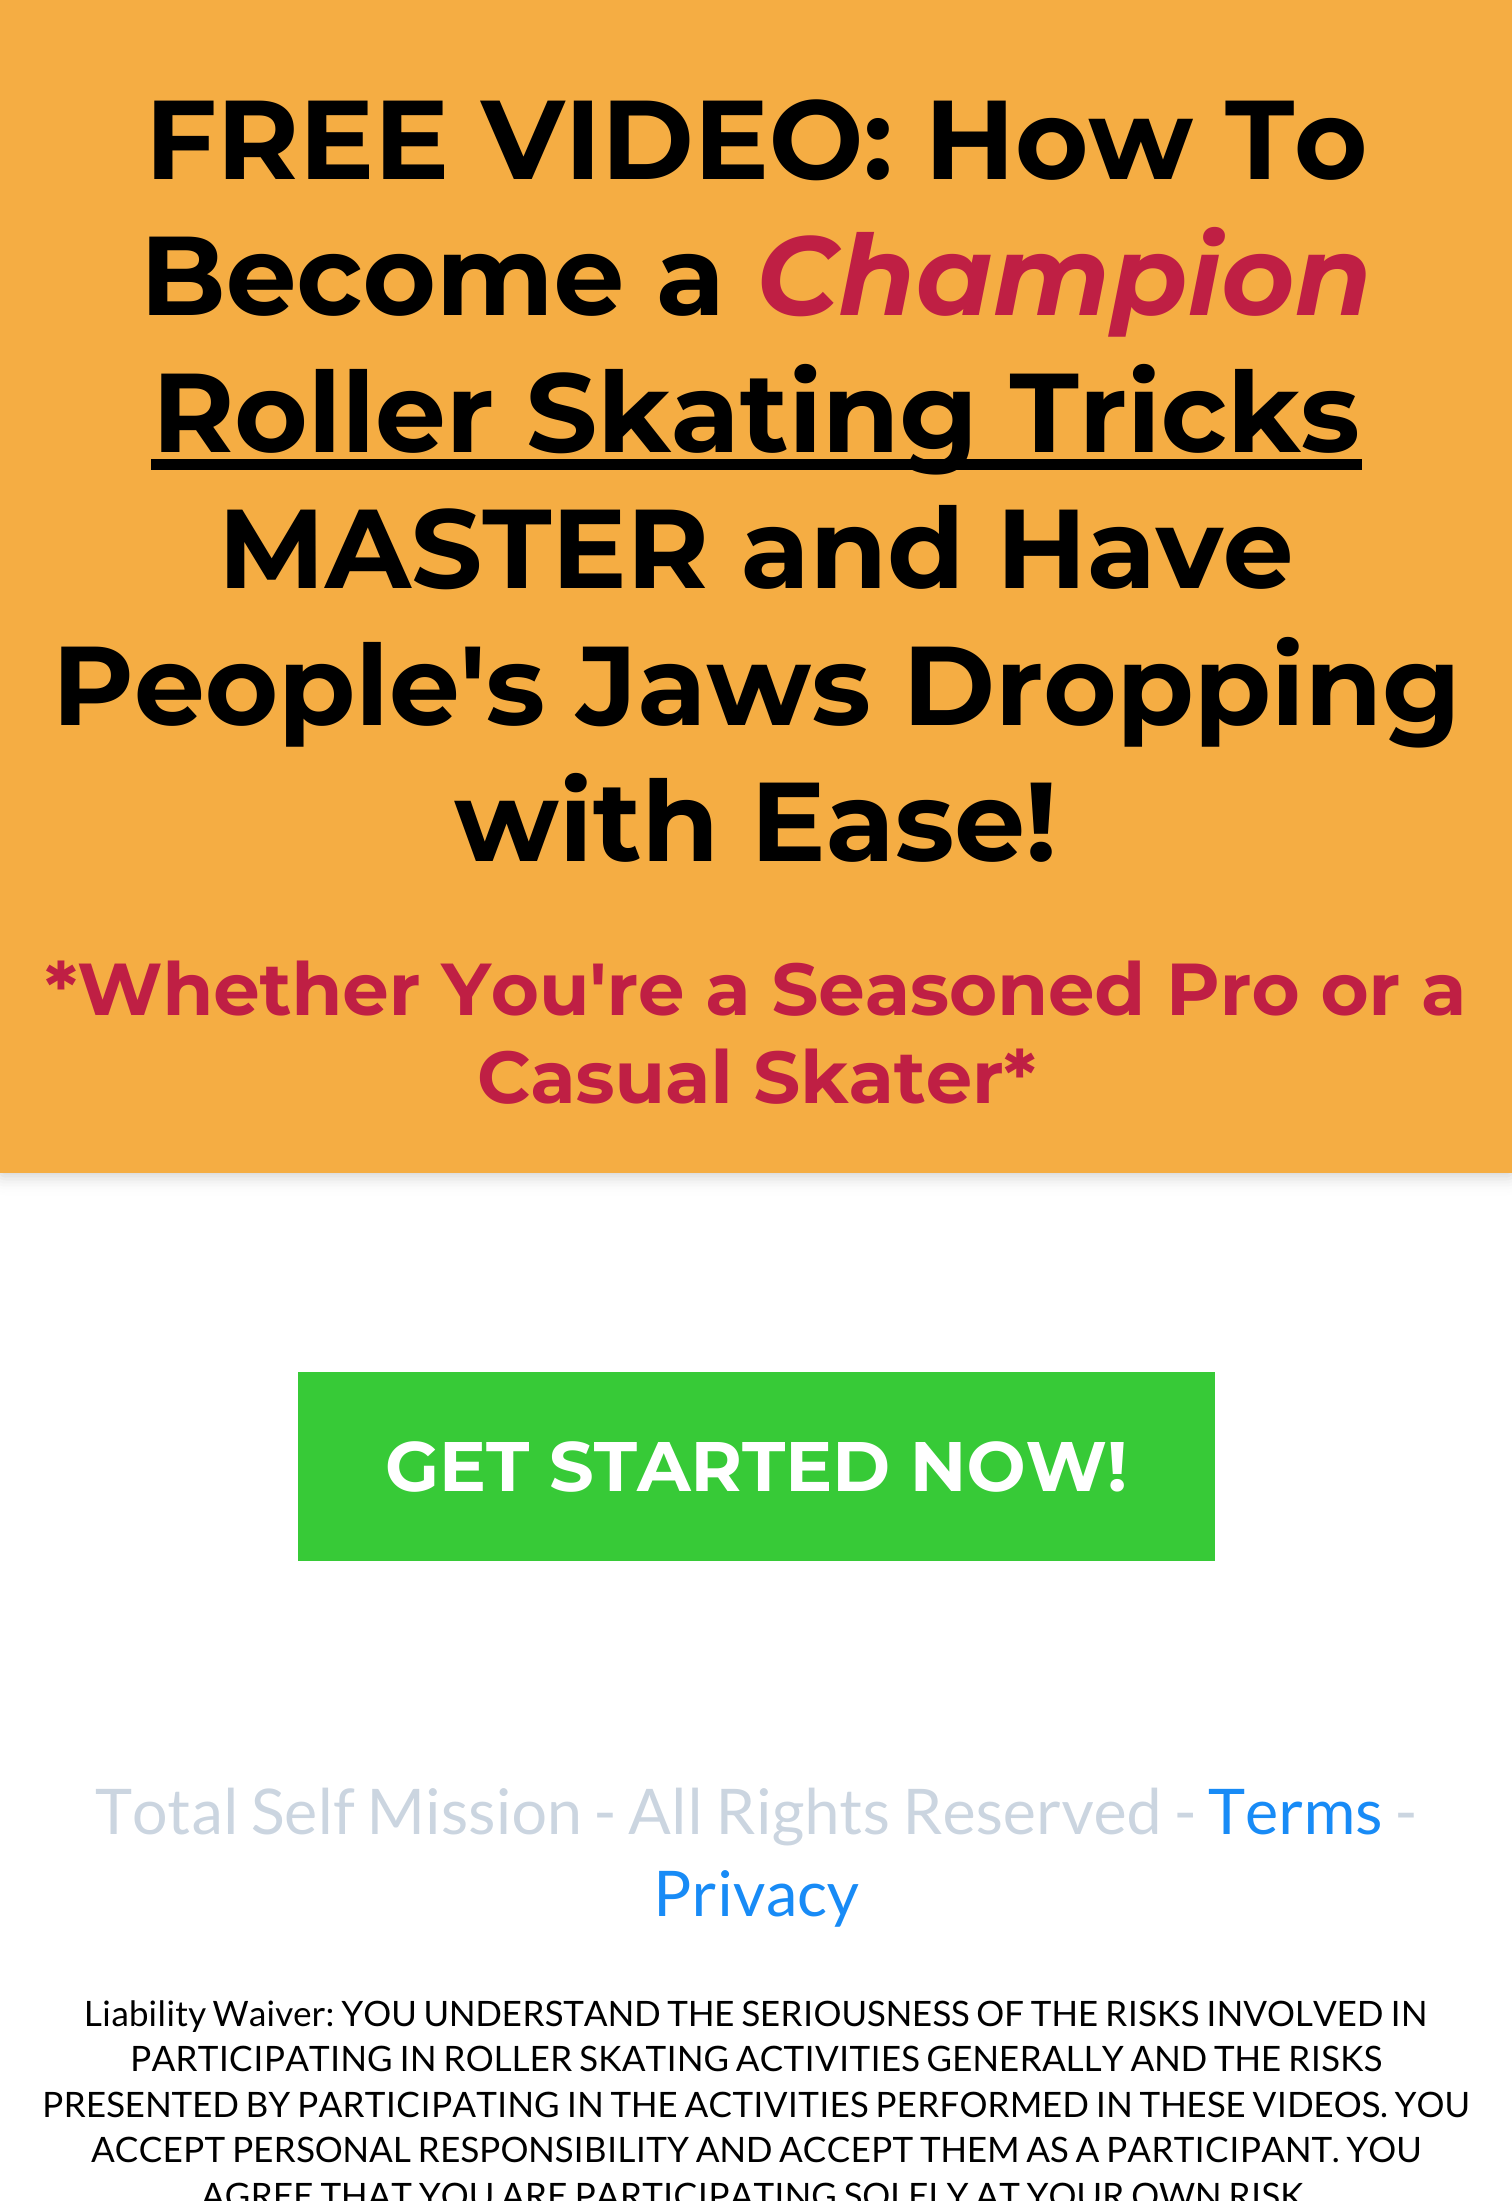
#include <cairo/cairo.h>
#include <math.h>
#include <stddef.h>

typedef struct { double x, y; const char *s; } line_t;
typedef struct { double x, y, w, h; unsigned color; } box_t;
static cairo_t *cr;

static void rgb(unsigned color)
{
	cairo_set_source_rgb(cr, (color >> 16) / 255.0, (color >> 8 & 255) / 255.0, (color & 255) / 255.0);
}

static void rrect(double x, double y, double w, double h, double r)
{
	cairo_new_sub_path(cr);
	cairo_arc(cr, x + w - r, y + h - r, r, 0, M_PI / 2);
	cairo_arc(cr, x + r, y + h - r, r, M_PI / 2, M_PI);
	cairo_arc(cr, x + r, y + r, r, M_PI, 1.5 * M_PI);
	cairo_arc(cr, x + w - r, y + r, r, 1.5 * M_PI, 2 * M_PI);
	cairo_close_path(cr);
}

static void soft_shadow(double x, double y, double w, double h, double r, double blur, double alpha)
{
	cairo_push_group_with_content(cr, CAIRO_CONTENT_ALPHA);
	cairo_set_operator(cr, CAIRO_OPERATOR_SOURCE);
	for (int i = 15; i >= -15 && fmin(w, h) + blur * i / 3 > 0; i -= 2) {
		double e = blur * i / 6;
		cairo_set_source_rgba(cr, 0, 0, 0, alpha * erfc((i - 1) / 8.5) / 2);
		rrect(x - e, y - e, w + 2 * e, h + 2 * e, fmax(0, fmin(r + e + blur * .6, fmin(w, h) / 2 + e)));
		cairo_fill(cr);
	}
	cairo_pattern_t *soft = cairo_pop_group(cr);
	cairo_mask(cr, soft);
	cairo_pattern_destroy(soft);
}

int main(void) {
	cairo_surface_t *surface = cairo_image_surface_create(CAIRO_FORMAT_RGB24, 1512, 2201);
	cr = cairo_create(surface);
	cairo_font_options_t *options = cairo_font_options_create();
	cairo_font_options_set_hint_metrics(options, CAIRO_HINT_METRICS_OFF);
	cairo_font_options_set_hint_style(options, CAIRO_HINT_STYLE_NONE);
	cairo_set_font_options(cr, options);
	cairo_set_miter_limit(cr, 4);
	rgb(0xffffff);
	cairo_paint(cr);
	rgb(0x000000);
	soft_shadow(0, 4, 1512, 1172, 0, 9, 0.2);
	{
		static const box_t items[] = {
			{0, 0, 1512, 1173, 0xf5ad43},
			{151, 459, 1211, 11, 0x000000},
			{298, 1372, 917, 189, 0x37ca37},
		};
		for (size_t i = 0; i < sizeof items / sizeof *items; i++) {
			rgb(items[i].color);
			cairo_rectangle(cr, items[i].x, items[i].y, items[i].w, items[i].h);
			cairo_fill(cr);
		}
	}
	cairo_select_font_face(cr, "Montserrat", CAIRO_FONT_SLANT_NORMAL, CAIRO_FONT_WEIGHT_BOLD);
	cairo_set_font_size(cr, 112);
	rgb(0x000000);
	cairo_move_to(cr, 145, 179);
	cairo_show_text(cr, "FREE VIDEO: How To");
	cairo_move_to(cr, 140, 315);
	cairo_show_text(cr, "Become a");
	cairo_select_font_face(cr, "Montserrat", CAIRO_FONT_SLANT_ITALIC, CAIRO_FONT_WEIGHT_BOLD);
	rgb(0xbf1f44);
	cairo_move_to(cr, 756, 315);
	cairo_show_text(cr, "Champion");
	cairo_select_font_face(cr, "Montserrat", CAIRO_FONT_SLANT_NORMAL, CAIRO_FONT_WEIGHT_BOLD);
	rgb(0x000000);
	{
		static const line_t items[] = {
			{152, 452, "Roller Skating Tricks"},
			{218, 588, "MASTER and Have"},
			{52, 725, "People's Jaws Dropping"},
			{454, 861, "with Ease!"},
		};
		for (size_t i = 0; i < sizeof items / sizeof *items; i++) {
			cairo_move_to(cr, items[i].x, items[i].y);
			cairo_show_text(cr, items[i].s);
		}
	}
	cairo_set_font_size(cr, 73.5);
	rgb(0xbf1f44);
	cairo_move_to(cr, 45, 1015);
	cairo_show_text(cr, "*Whether You're a Seasoned Pro or a");
	cairo_move_to(cr, 477, 1103);
	cairo_show_text(cr, "Casual Skater*");
	cairo_set_font_size(cr, 70);
	rgb(0xffffff);
	cairo_move_to(cr, 385, 1491);
	cairo_show_text(cr, "GET STARTED NOW!");
	cairo_select_font_face(cr, "Lato", CAIRO_FONT_SLANT_NORMAL, CAIRO_FONT_WEIGHT_NORMAL);
	cairo_set_font_size(cr, 63);
	rgb(0xcbd5e0);
	cairo_move_to(cr, 95, 1834);
	cairo_show_text(cr, "Total Self Mission - All Rights Reserved -");
	rgb(0x188bf6);
	cairo_move_to(cr, 1208, 1834);
	cairo_show_text(cr, "Terms");
	rgb(0xcbd5e0);
	cairo_move_to(cr, 1395, 1834);
	cairo_show_text(cr, "-");
	rgb(0x188bf6);
	cairo_move_to(cr, 653, 1916);
	cairo_show_text(cr, "Privacy");
	cairo_set_font_size(cr, 35);
	rgb(0x000000);
	{
		static const line_t items[] = {
			{84, 2026, "Liability Waiver: YOU UNDERSTAND THE SERIOUSNESS OF THE RISKS INVOLVED IN"},
			{130, 2071, "PARTICIPATING IN ROLLER SKATING ACTIVITIES GENERALLY AND THE RISKS"},
			{42, 2117, "PRESENTED BY PARTICIPATING IN THE ACTIVITIES PERFORMED IN THESE VIDEOS. YOU"},
			{91, 2162, "ACCEPT PERSONAL RESPONSIBILITY AND ACCEPT THEM AS A PARTICIPANT. YOU"},
			{201, 2208, "AGREE THAT YOU ARE PARTICIPATING SOLELY AT YOUR OWN RISK"},
		};
		for (size_t i = 0; i < sizeof items / sizeof *items; i++) {
			cairo_move_to(cr, items[i].x, items[i].y);
			cairo_show_text(cr, items[i].s);
		}
	}
	cairo_surface_write_to_png(surface, "page.png");
	cairo_font_options_destroy(options);
	cairo_destroy(cr);
	cairo_surface_destroy(surface);
	return 0;
}
